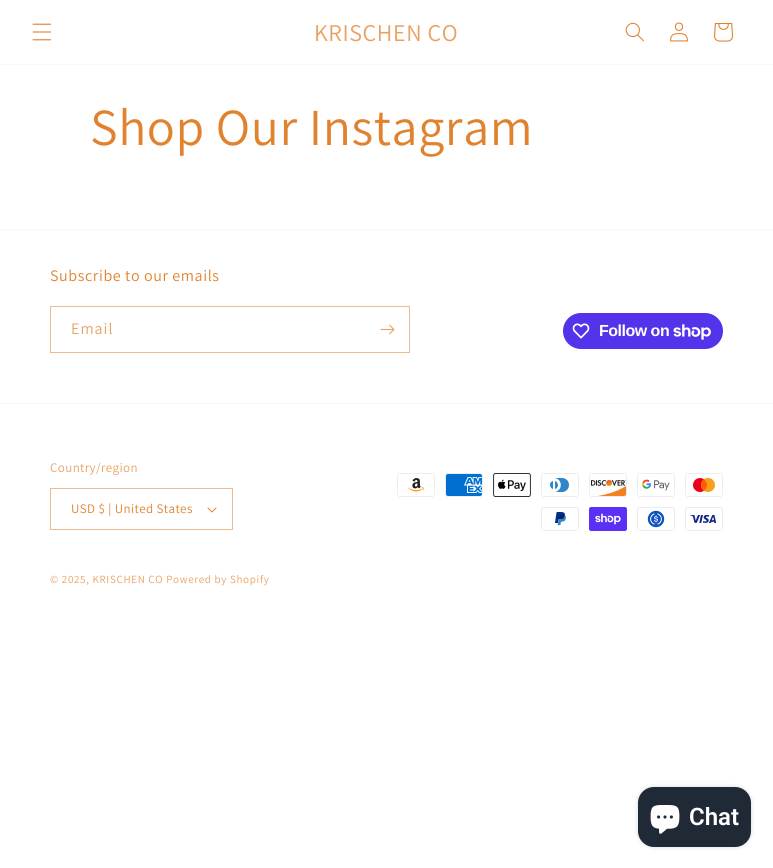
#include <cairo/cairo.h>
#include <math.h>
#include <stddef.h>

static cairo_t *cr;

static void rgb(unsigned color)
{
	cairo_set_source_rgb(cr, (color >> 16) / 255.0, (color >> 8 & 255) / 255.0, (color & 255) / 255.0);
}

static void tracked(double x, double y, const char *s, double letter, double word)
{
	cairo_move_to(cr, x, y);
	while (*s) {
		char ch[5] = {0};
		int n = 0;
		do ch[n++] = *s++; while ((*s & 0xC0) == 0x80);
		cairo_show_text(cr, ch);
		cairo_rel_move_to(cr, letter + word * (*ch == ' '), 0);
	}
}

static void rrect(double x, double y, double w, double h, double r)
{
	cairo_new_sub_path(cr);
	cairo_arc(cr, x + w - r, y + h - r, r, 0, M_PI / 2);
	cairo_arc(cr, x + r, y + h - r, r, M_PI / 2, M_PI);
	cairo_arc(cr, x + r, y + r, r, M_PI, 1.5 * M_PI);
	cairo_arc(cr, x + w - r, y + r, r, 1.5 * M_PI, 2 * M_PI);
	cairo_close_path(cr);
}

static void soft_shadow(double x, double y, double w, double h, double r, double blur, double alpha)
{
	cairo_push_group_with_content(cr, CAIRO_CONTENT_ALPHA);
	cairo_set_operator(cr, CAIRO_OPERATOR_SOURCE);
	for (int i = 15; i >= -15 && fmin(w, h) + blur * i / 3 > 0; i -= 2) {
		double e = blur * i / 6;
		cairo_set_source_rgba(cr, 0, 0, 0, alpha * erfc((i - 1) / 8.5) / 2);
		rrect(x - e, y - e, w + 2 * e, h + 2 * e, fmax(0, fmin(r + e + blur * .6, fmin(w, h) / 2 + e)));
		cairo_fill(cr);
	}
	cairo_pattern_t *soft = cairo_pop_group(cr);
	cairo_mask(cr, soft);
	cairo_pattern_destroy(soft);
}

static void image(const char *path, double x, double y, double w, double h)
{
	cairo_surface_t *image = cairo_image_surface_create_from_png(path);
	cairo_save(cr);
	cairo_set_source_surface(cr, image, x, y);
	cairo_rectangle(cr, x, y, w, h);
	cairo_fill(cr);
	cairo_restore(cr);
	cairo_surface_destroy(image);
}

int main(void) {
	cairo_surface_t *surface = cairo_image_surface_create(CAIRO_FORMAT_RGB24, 773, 868);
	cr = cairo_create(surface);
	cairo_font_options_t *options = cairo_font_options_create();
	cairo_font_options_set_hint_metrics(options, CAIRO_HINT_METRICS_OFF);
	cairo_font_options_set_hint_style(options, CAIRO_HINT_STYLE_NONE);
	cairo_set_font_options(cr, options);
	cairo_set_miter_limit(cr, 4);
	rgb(0xffffff);
	cairo_paint(cr);
	rgb(0xfdf5ee);
	cairo_rectangle(cr, 0, 64, 773, 1);
	cairo_fill(cr);
	image("img/1.png", 32, 23, 20, 18);
	image("img/2.png", 625, 22, 19, 20);
	image("img/3.png", 670, 22, 18, 20);
	image("img/4.png", 714, 23, 20, 19);
	cairo_rectangle(cr, 0, 229, 773, 1);
	cairo_fill(cr);
	cairo_rectangle(cr, 50.5, 306.5, 359, 46);
	rgb(0xefba8c);
	cairo_set_line_width(cr, 1);
	cairo_stroke(cr);
	image("img/5.png", 380, 324, 15, 11);
	rgb(0x5433eb);
	rrect(563, 313, 160, 36, 18);
	cairo_fill(cr);
	image("img/6.png", 572, 323, 18, 16);
	image("img/7.png", 673, 324, 38, 16);
	rgb(0xfdf5ee);
	cairo_rectangle(cr, 0, 403, 773, 1);
	cairo_fill(cr);
	image("img/8.png", 207, 507, 10, 6);
	cairo_rectangle(cr, 50.5, 488.5, 182, 41);
	rgb(0xefba8c);
	cairo_stroke(cr);
	image("img/9.png", 397, 473, 38, 24);
	image("img/10.png", 445, 473, 38, 24);
	image("img/11.png", 493, 473, 38, 24);
	image("img/12.png", 541, 473, 38, 24);
	image("img/13.png", 589, 473, 38, 24);
	image("img/14.png", 637, 473, 38, 24);
	image("img/15.png", 685, 473, 38, 24);
	image("img/16.png", 541, 507, 38, 24);
	image("img/17.png", 589, 507, 38, 24);
	image("img/18.png", 637, 507, 38, 24);
	image("img/19.png", 685, 507, 38, 24);
	rgb(0x000000);
	soft_shadow(638, 787, 113, 60, 16, 2.5, 0.15);
	rgb(0x202a36);
	rrect(638, 787, 113, 60, 16);
	cairo_fill(cr);
	image("img/20.png", 650, 805, 30, 29);
	cairo_select_font_face(cr, "Assistant", CAIRO_FONT_SLANT_NORMAL, CAIRO_FONT_WEIGHT_NORMAL);
	cairo_set_font_size(cr, 24);
	rgb(0xe9a162);
	tracked(314, 41, "KRISCHEN CO", 0.6, 0);
	cairo_set_font_size(cr, 52);
	rgb(0xe1822e);
	tracked(90, 145, "Shop Our Instagram", 0.6, 0);
	cairo_set_font_size(cr, 16);
	tracked(50, 281, "Subscribe to our emails", 0.6, 0);
	rgb(0xe9a162);
	tracked(71, 334, "Email", 1, 0);
	cairo_select_font_face(cr, "Liberation Sans", CAIRO_FONT_SLANT_NORMAL, CAIRO_FONT_WEIGHT_BOLD);
	rgb(0xffffff);
	tracked(599, 336, "Follow on", -0.5, 0);
	cairo_select_font_face(cr, "Assistant", CAIRO_FONT_SLANT_NORMAL, CAIRO_FONT_WEIGHT_NORMAL);
	cairo_set_font_size(cr, 13);
	rgb(0xe9a162);
	tracked(50, 472, "Country/region", 0.4, 0);
	rgb(0xe1822e);
	tracked(71, 513, "USD $ | United States", 0.4, 0);
	cairo_set_font_size(cr, 11);
	rgb(0xe9a162);
	tracked(50, 583, "© 2025, KRISCHEN CO Powered by Shopify", 0.7, 0);
	cairo_select_font_face(cr, "Roboto SemiBold", CAIRO_FONT_SLANT_NORMAL, CAIRO_FONT_WEIGHT_NORMAL);
	cairo_set_font_size(cr, 24);
	rgb(0xffffff);
	cairo_move_to(cr, 689, 825);
	cairo_show_text(cr, "Chat");
	cairo_surface_write_to_png(surface, "page.png");
	cairo_font_options_destroy(options);
	cairo_destroy(cr);
	cairo_surface_destroy(surface);
	return 0;
}
